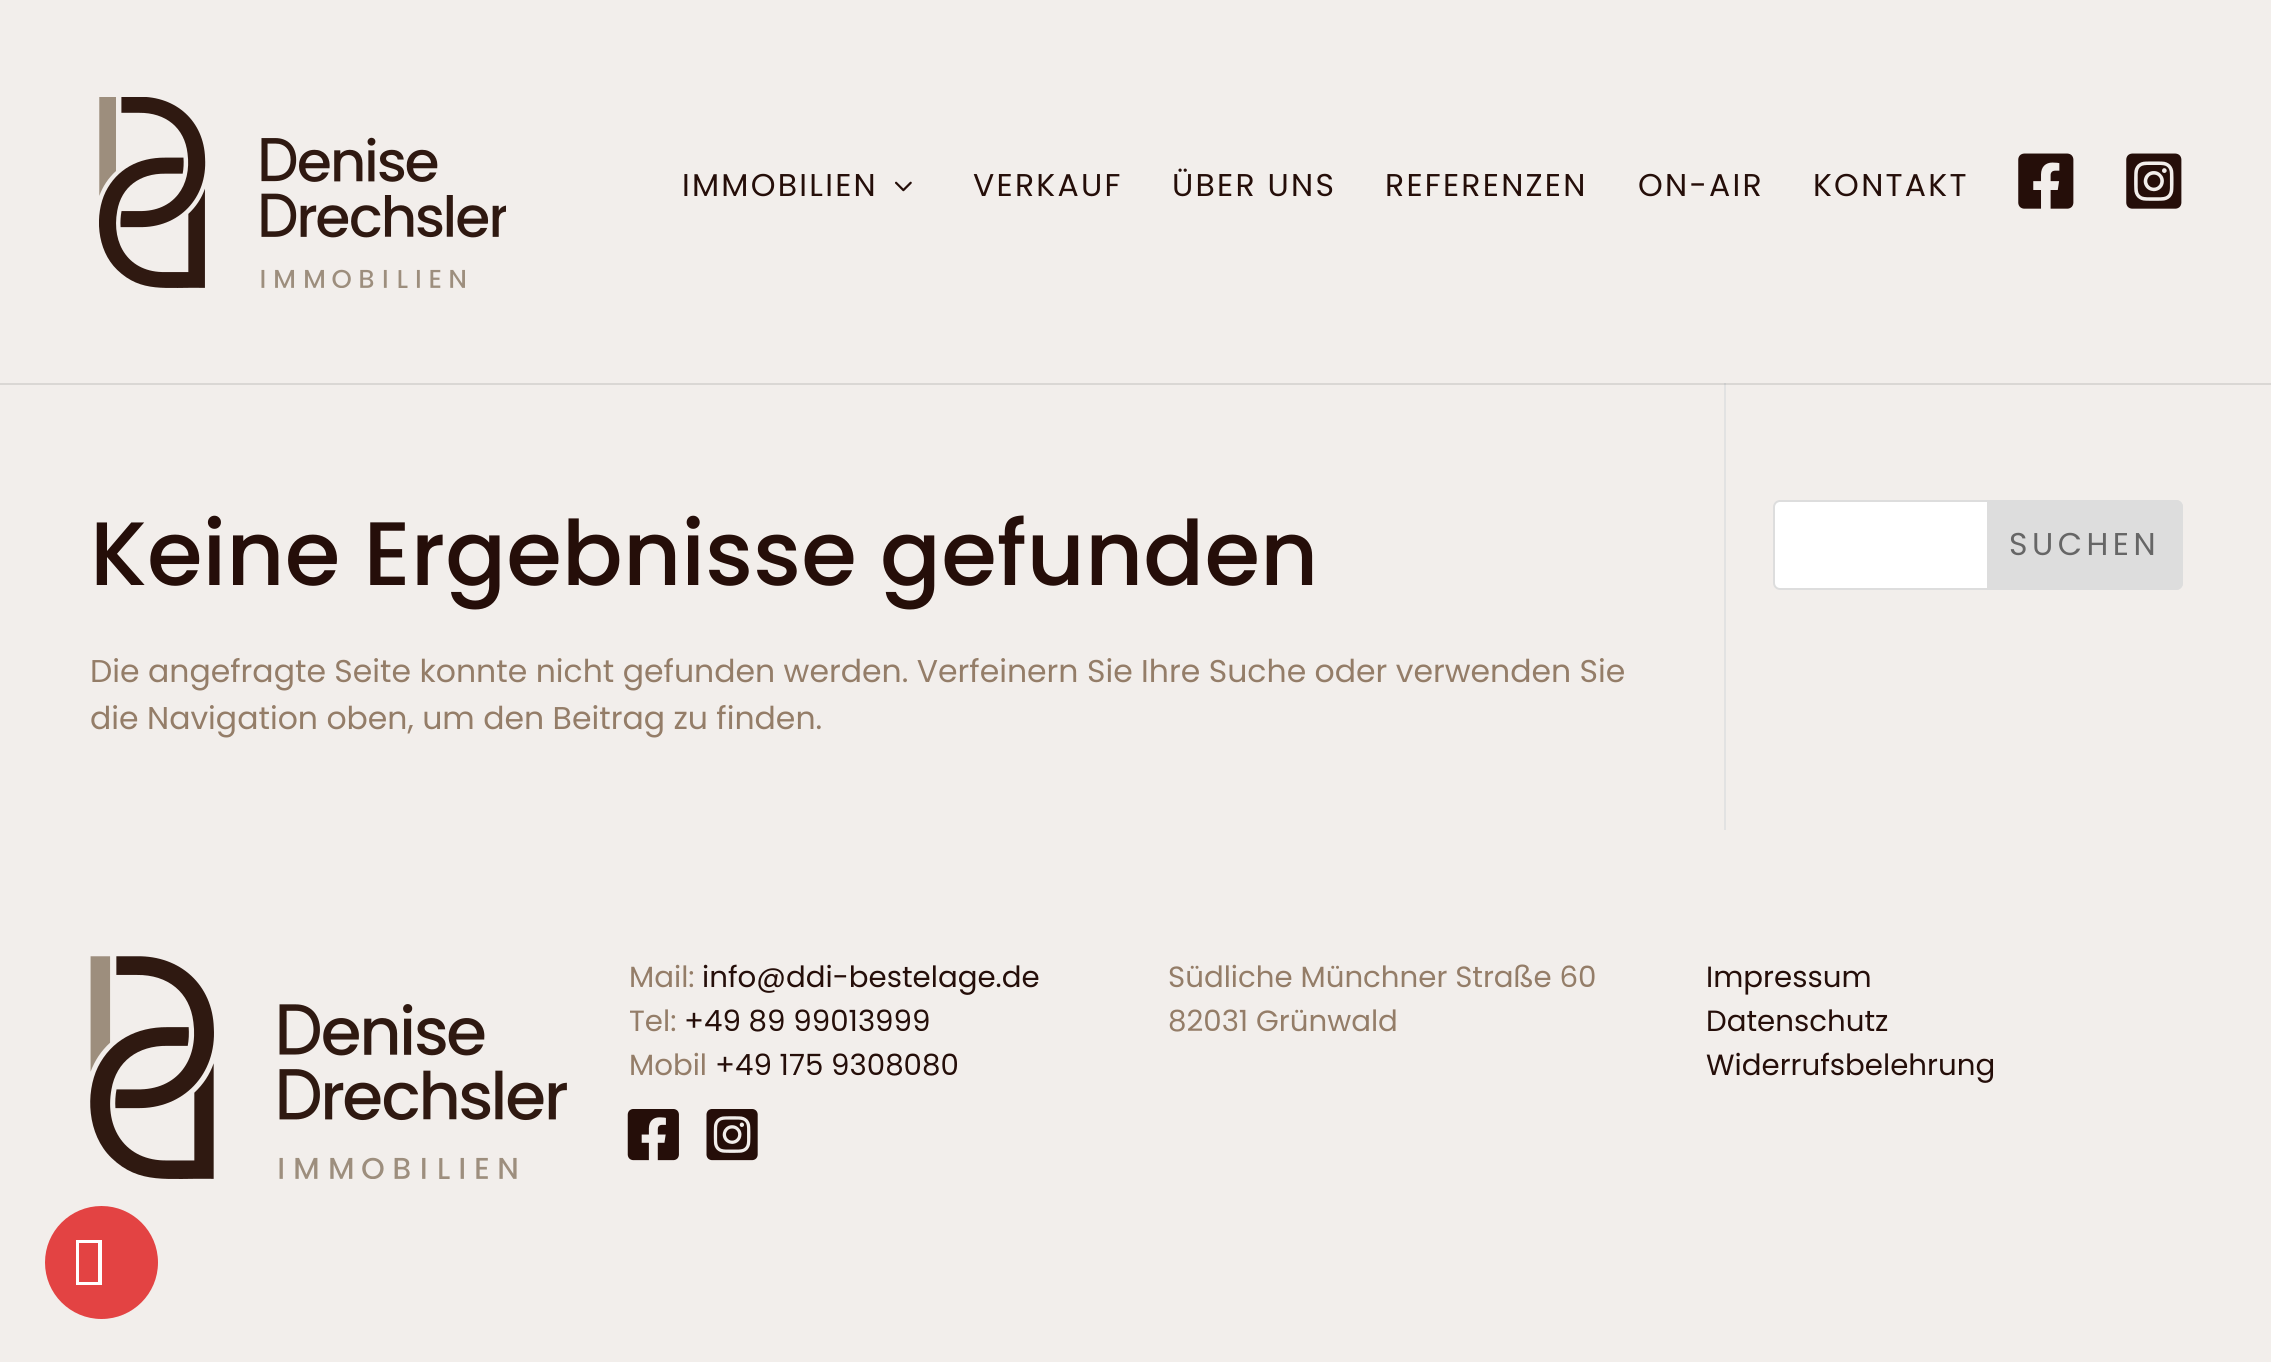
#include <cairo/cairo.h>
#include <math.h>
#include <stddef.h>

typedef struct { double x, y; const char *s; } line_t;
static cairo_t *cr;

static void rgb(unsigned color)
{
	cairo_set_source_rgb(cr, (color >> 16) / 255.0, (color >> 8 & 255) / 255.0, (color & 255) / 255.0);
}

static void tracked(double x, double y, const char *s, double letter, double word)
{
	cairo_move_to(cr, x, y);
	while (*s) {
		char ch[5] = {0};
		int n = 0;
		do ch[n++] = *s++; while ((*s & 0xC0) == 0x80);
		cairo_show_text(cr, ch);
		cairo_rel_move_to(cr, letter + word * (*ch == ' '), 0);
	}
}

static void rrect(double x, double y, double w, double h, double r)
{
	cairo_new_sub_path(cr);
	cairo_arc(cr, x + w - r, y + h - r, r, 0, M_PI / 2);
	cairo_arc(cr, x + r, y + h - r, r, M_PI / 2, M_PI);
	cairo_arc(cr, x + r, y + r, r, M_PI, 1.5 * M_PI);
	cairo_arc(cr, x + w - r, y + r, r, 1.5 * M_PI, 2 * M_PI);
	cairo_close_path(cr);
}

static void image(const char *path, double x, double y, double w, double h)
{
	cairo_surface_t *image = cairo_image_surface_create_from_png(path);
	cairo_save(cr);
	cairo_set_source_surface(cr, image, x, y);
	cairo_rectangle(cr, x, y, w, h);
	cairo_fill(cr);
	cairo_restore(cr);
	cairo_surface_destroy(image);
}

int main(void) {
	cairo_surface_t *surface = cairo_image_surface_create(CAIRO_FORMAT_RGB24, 2271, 1362);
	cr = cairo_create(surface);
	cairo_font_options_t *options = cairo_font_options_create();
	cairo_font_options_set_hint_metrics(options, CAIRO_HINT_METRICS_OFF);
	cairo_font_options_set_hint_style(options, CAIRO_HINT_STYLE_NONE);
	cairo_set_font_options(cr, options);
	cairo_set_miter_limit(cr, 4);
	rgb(0xf2eeeb);
	cairo_paint(cr);
	rgb(0xe2e2e2);
	cairo_rectangle(cr, 1724, 383, 2, 447);
	cairo_fill(cr);
	cairo_set_source_rgba(cr, 0, 0, 0, 0.1);
	cairo_new_path(cr);
	cairo_move_to(cr, 0, 382);
	cairo_line_to(cr, 0, 385);
	cairo_line_to(cr, 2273, 385);
	cairo_line_to(cr, 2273, 2);
	cairo_line_to(cr, 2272, 2);
	cairo_line_to(cr, 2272, 382);
	cairo_close_path(cr);
	cairo_fill(cr);
	rgb(0xf2eeeb);
	cairo_rectangle(cr, 0, 382, 2271, 1);
	cairo_fill(cr);
	image("img/1.png", 99, 97, 407, 191);
	image("img/2.png", 895, 181, 17, 11);
	image("img/3.png", 2018, 153, 56, 56);
	image("img/4.png", 2126, 153, 56, 56);
	rgb(0xffffff);
	rrect(1774, 501, 408, 88, 6);
	cairo_fill_preserve(cr);
	rgb(0xdddddd);
	cairo_stroke(cr);
	cairo_new_path(cr);
	cairo_move_to(cr, 1987, 500);
	cairo_line_to(cr, 2176, 500);
	cairo_curve_to(cr, 2180, 500, 2183, 503, 2183, 507);
	cairo_line_to(cr, 2183, 583);
	cairo_curve_to(cr, 2183, 587, 2180, 590, 2176, 590);
	cairo_line_to(cr, 1987, 590);
	cairo_close_path(cr);
	cairo_fill(cr);
	image("img/5.png", 90, 956, 477, 223);
	image("img/6.png", 627, 1109, 52, 52);
	image("img/7.png", 706, 1109, 52, 52);
	rgb(0xe34343);
	cairo_arc(cr, 101.5, 1262.5, 56.5, 0, 2 * M_PI);
	cairo_fill(cr);
	rgb(0xffffff);
	cairo_new_path(cr);
	cairo_move_to(cr, 76, 1285);
	cairo_line_to(cr, 76, 1240);
	cairo_line_to(cr, 102, 1240);
	cairo_line_to(cr, 102, 1285);
	cairo_close_path(cr);
	cairo_move_to(cr, 79, 1282);
	cairo_line_to(cr, 98, 1282);
	cairo_line_to(cr, 98, 1243);
	cairo_line_to(cr, 79, 1243);
	cairo_close_path(cr);
	cairo_fill(cr);
	cairo_select_font_face(cr, "Poppins", CAIRO_FONT_SLANT_NORMAL, CAIRO_FONT_WEIGHT_NORMAL);
	cairo_set_font_size(cr, 31.5);
	rgb(0x250e09);
	{
		static const line_t items[] = {
			{682, 196, "IMMOBILIEN"},
			{973, 196, "VERKAUF"},
			{1172, 196, "ÜBER UNS"},
			{1385, 196, "REFERENZEN"},
			{1638, 196, "ON-AIR"},
			{1813, 196, "KONTAKT"},
		};
		for (size_t i = 0; i < sizeof items / sizeof *items; i++) {
			tracked(items[i].x, items[i].y, items[i].s, 2.25, 0);
		}
	}
	cairo_select_font_face(cr, "Poppins Medium", CAIRO_FONT_SLANT_NORMAL, CAIRO_FONT_WEIGHT_NORMAL);
	cairo_set_font_size(cr, 90);
	cairo_move_to(cr, 90, 585);
	cairo_show_text(cr, "Keine Ergebnisse gefunden");
	cairo_select_font_face(cr, "Poppins", CAIRO_FONT_SLANT_NORMAL, CAIRO_FONT_WEIGHT_NORMAL);
	cairo_set_font_size(cr, 31.5);
	rgb(0x947d68);
	cairo_move_to(cr, 90, 682);
	cairo_show_text(cr, "Die angefragte Seite konnte nicht gefunden werden. Verfeinern Sie Ihre Suche oder verwenden Sie");
	cairo_move_to(cr, 90, 729);
	cairo_show_text(cr, "die Navigation oben, um den Beitrag zu finden.");
	rgb(0x666666);
	tracked(2009, 555, "SUCHEN", 4.5, 0);
	cairo_set_font_size(cr, 29.25);
	rgb(0x947d68);
	cairo_move_to(cr, 629, 987);
	cairo_show_text(cr, "Mail:");
	rgb(0x250e09);
	cairo_move_to(cr, 702, 987);
	cairo_show_text(cr, "info@ddi-bestelage.de");
	rgb(0x947d68);
	cairo_move_to(cr, 629, 1031);
	cairo_show_text(cr, "Tel:");
	rgb(0x250e09);
	cairo_move_to(cr, 684, 1031);
	cairo_show_text(cr, "+49 89 99013999");
	rgb(0x947d68);
	cairo_move_to(cr, 629, 1075);
	cairo_show_text(cr, "Mobil");
	rgb(0x250e09);
	cairo_move_to(cr, 715, 1075);
	cairo_show_text(cr, "+49 175 9308080");
	rgb(0x947d68);
	cairo_move_to(cr, 1168, 987);
	cairo_show_text(cr, "Südliche Münchner Straße 60");
	cairo_move_to(cr, 1168, 1031);
	cairo_show_text(cr, "82031 Grünwald");
	rgb(0x250e09);
	{
		static const line_t items[] = {
			{1706, 987, "Impressum"},
			{1706, 1031, "Datenschutz"},
			{1706, 1075, "Widerrufsbelehrung"},
		};
		for (size_t i = 0; i < sizeof items / sizeof *items; i++) {
			cairo_move_to(cr, items[i].x, items[i].y);
			cairo_show_text(cr, items[i].s);
		}
	}
	cairo_surface_write_to_png(surface, "page.png");
	cairo_font_options_destroy(options);
	cairo_destroy(cr);
	cairo_surface_destroy(surface);
	return 0;
}
